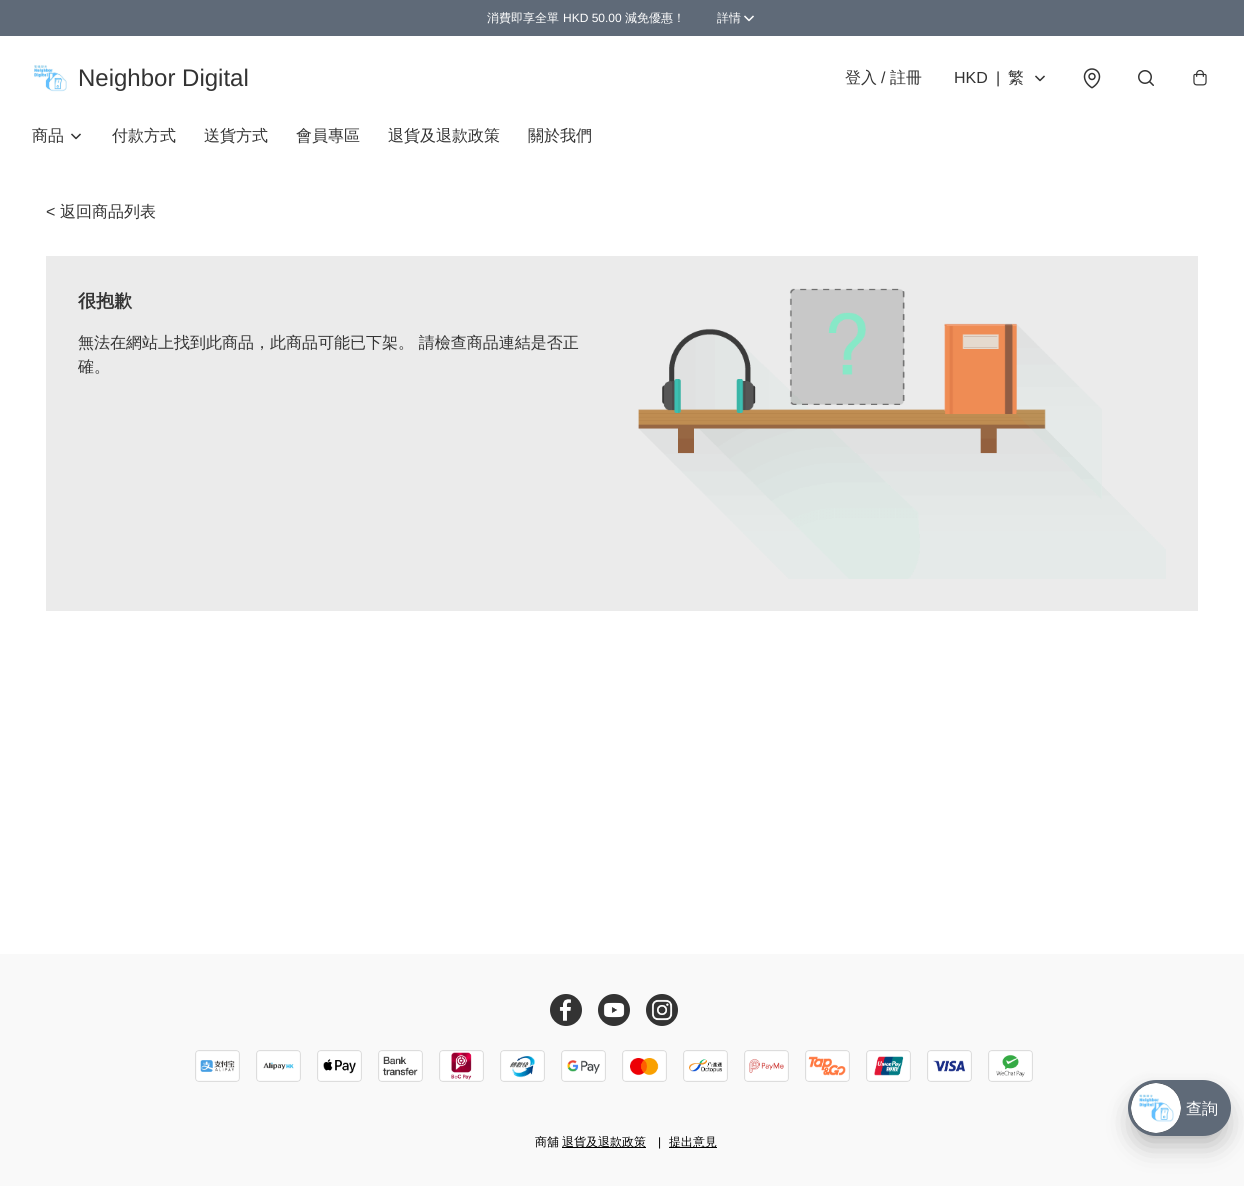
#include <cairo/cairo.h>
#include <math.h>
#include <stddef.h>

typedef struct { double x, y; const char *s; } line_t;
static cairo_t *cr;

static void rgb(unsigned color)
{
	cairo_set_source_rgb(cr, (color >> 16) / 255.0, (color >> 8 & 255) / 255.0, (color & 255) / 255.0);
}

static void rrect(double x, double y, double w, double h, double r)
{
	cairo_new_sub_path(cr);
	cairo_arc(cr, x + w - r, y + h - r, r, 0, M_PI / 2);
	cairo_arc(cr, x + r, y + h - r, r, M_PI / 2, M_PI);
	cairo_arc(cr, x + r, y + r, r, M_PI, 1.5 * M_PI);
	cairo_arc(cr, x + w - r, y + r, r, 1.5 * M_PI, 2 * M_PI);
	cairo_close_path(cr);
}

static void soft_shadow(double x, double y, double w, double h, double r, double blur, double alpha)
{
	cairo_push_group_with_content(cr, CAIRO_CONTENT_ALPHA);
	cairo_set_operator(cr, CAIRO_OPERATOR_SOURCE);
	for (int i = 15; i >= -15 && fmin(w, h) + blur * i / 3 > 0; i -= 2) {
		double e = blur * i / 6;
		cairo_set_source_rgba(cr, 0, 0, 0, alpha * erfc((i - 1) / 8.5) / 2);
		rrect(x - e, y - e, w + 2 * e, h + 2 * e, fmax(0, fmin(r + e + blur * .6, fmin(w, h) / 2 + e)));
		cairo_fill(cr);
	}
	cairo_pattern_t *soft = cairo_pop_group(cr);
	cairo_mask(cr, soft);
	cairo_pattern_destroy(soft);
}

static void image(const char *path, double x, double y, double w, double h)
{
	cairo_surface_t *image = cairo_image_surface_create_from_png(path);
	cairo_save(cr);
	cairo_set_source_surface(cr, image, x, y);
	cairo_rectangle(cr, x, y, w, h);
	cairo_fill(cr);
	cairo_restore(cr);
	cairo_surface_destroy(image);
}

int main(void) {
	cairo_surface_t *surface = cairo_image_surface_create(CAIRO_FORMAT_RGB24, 1244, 1186);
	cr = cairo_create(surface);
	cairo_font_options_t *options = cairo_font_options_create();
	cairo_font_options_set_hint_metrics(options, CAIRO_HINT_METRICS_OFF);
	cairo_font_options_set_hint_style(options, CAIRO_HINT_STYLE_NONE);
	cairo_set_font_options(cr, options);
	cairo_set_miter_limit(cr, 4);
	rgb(0xffffff);
	cairo_paint(cr);
	rgb(0x5f6a78);
	cairo_rectangle(cr, 0, 0, 1244, 36);
	cairo_fill(cr);
	cairo_new_path(cr);
	cairo_move_to(cr, 745, 16.5);
	cairo_line_to(cr, 749, 20.5);
	cairo_line_to(cr, 753, 16.5);
	rgb(0xffffff);
	cairo_set_line_width(cr, 1.5);
	cairo_set_line_cap(cr, CAIRO_LINE_CAP_SQUARE);
	cairo_set_line_join(cr, CAIRO_LINE_JOIN_ROUND);
	cairo_stroke(cr);
	image("img/1.png", 34, 65, 33, 27);
	cairo_new_path(cr);
	cairo_move_to(cr, 1036, 76.5);
	cairo_line_to(cr, 1040, 80.5);
	cairo_line_to(cr, 1044, 76.5);
	rgb(0x333333);
	cairo_stroke(cr);
	image("img/2.png", 1083, 68, 18, 21);
	image("img/3.png", 1138, 70, 16, 16);
	image("img/4.png", 1193, 69, 14, 17);
	cairo_new_path(cr);
	cairo_move_to(cr, 72, 134.5);
	cairo_line_to(cr, 76, 138.5);
	cairo_line_to(cr, 80, 134.5);
	cairo_stroke(cr);
	rgb(0xebebeb);
	cairo_rectangle(cr, 46, 256, 1152, 355);
	cairo_fill(cr);
	image("img/5.png", 638, 288, 528, 291);
	rgb(0xf9f9f9);
	cairo_rectangle(cr, 0, 954, 1244, 232);
	cairo_fill(cr);
	rgb(0x333333);
	cairo_arc(cr, 566, 1010, 16, 0, 2 * M_PI);
	cairo_fill(cr);
	image("img/6.png", 559, 999, 12, 22);
	cairo_arc(cr, 614, 1010, 16, 0, 2 * M_PI);
	cairo_fill(cr);
	image("img/7.png", 603, 1002, 22, 16);
	cairo_arc(cr, 662, 1010, 16, 0, 2 * M_PI);
	cairo_fill(cr);
	image("img/8.png", 651, 999, 22, 22);
	image("img/9.png", 195, 1050, 45, 32);
	image("img/10.png", 256, 1050, 45, 32);
	image("img/11.png", 317, 1050, 45, 32);
	image("img/12.png", 378, 1050, 45, 32);
	image("img/13.png", 439, 1050, 45, 32);
	image("img/14.png", 500, 1050, 45, 32);
	image("img/15.png", 561, 1050, 45, 32);
	image("img/16.png", 622, 1050, 45, 32);
	image("img/17.png", 683, 1050, 45, 32);
	image("img/18.png", 744, 1050, 45, 32);
	image("img/19.png", 805, 1050, 45, 32);
	image("img/20.png", 866, 1050, 45, 32);
	image("img/21.png", 927, 1050, 45, 32);
	image("img/22.png", 988, 1050, 45, 32);
	rgb(0x000000);
	cairo_rectangle(cr, 562, 1147, 84, 1);
	cairo_fill(cr);
	cairo_rectangle(cr, 669, 1147, 48, 1);
	cairo_fill(cr);
	rgb(0x000000);
	soft_shadow(1138, 1105, 83, 36, 18, 15, 0.3);
	soft_shadow(1128, 1085, 103, 56, 28, 10, 0.05);
	rgb(0x5f6a78);
	rrect(1128, 1080, 103, 56, 28);
	cairo_fill(cr);
	image("img/23.png", 1131, 1083, 50, 50);
	cairo_select_font_face(cr, "WenQuanYi Zen Hei Medium", CAIRO_FONT_SLANT_NORMAL, CAIRO_FONT_WEIGHT_NORMAL);
	cairo_set_font_size(cr, 12);
	rgb(0xffffff);
	cairo_move_to(cr, 487, 22);
	cairo_show_text(cr, "消費即享全單");
	cairo_select_font_face(cr, "Liberation Sans", CAIRO_FONT_SLANT_NORMAL, CAIRO_FONT_WEIGHT_NORMAL);
	cairo_move_to(cr, 563, 22);
	cairo_show_text(cr, "HKD 50.00");
	cairo_select_font_face(cr, "WenQuanYi Zen Hei Medium", CAIRO_FONT_SLANT_NORMAL, CAIRO_FONT_WEIGHT_NORMAL);
	cairo_move_to(cr, 625, 22);
	cairo_show_text(cr, "減免優惠！");
	cairo_move_to(cr, 717, 22);
	cairo_show_text(cr, "詳情");
	cairo_select_font_face(cr, "Liberation Sans", CAIRO_FONT_SLANT_NORMAL, CAIRO_FONT_WEIGHT_NORMAL);
	cairo_set_font_size(cr, 24);
	rgb(0x333333);
	cairo_move_to(cr, 78, 86);
	cairo_show_text(cr, "Neighbor Digital");
	cairo_select_font_face(cr, "WenQuanYi Zen Hei Medium", CAIRO_FONT_SLANT_NORMAL, CAIRO_FONT_WEIGHT_NORMAL);
	cairo_set_font_size(cr, 16);
	cairo_move_to(cr, 845, 83);
	cairo_show_text(cr, "登入");
	cairo_select_font_face(cr, "Liberation Sans", CAIRO_FONT_SLANT_NORMAL, CAIRO_FONT_WEIGHT_NORMAL);
	cairo_move_to(cr, 881, 83);
	cairo_show_text(cr, "/");
	cairo_select_font_face(cr, "WenQuanYi Zen Hei Medium", CAIRO_FONT_SLANT_NORMAL, CAIRO_FONT_WEIGHT_NORMAL);
	cairo_move_to(cr, 890, 83);
	cairo_show_text(cr, "註冊");
	cairo_select_font_face(cr, "Liberation Sans", CAIRO_FONT_SLANT_NORMAL, CAIRO_FONT_WEIGHT_NORMAL);
	cairo_move_to(cr, 954, 83);
	cairo_show_text(cr, "HKD");
	cairo_move_to(cr, 996, 83);
	cairo_show_text(cr, "|");
	cairo_select_font_face(cr, "WenQuanYi Zen Hei Medium", CAIRO_FONT_SLANT_NORMAL, CAIRO_FONT_WEIGHT_NORMAL);
	{
		static const line_t items[] = {
			{1008, 83, "繁"},
			{32, 141, "商品"},
			{112, 141, "付款方式"},
			{204, 141, "送貨方式"},
			{296, 141, "會員專區"},
			{388, 141, "退貨及退款政策"},
			{528, 141, "關於我們"},
		};
		for (size_t i = 0; i < sizeof items / sizeof *items; i++) {
			cairo_move_to(cr, items[i].x, items[i].y);
			cairo_show_text(cr, items[i].s);
		}
	}
	cairo_select_font_face(cr, "Liberation Sans", CAIRO_FONT_SLANT_NORMAL, CAIRO_FONT_WEIGHT_NORMAL);
	cairo_move_to(cr, 46, 217);
	cairo_show_text(cr, "<");
	cairo_select_font_face(cr, "WenQuanYi Zen Hei Medium", CAIRO_FONT_SLANT_NORMAL, CAIRO_FONT_WEIGHT_NORMAL);
	cairo_move_to(cr, 60, 217);
	cairo_show_text(cr, "返回商品列表");
	cairo_select_font_face(cr, "WenQuanYi Zen Hei", CAIRO_FONT_SLANT_NORMAL, CAIRO_FONT_WEIGHT_BOLD);
	cairo_set_font_size(cr, 18);
	cairo_move_to(cr, 78, 307);
	cairo_show_text(cr, "很抱歉");
	cairo_select_font_face(cr, "WenQuanYi Zen Hei Medium", CAIRO_FONT_SLANT_NORMAL, CAIRO_FONT_WEIGHT_NORMAL);
	cairo_set_font_size(cr, 16);
	cairo_move_to(cr, 78, 348);
	cairo_show_text(cr, "無法在網站上找到此商品，此商品可能已下架。 請檢查商品連結是否正");
	cairo_move_to(cr, 78, 372);
	cairo_show_text(cr, "確。");
	cairo_set_font_size(cr, 12);
	rgb(0x000000);
	cairo_move_to(cr, 535, 1146);
	cairo_show_text(cr, "商舖");
	cairo_move_to(cr, 562, 1146);
	cairo_show_text(cr, "退貨及退款政策");
	cairo_select_font_face(cr, "Liberation Sans", CAIRO_FONT_SLANT_NORMAL, CAIRO_FONT_WEIGHT_NORMAL);
	cairo_move_to(cr, 658, 1146);
	cairo_show_text(cr, "|");
	cairo_select_font_face(cr, "WenQuanYi Zen Hei Medium", CAIRO_FONT_SLANT_NORMAL, CAIRO_FONT_WEIGHT_NORMAL);
	cairo_move_to(cr, 669, 1146);
	cairo_show_text(cr, "提出意見");
	cairo_set_font_size(cr, 16);
	rgb(0xffffff);
	cairo_move_to(cr, 1186, 1114);
	cairo_show_text(cr, "查詢");
	cairo_surface_write_to_png(surface, "page.png");
	cairo_font_options_destroy(options);
	cairo_destroy(cr);
	cairo_surface_destroy(surface);
	return 0;
}
